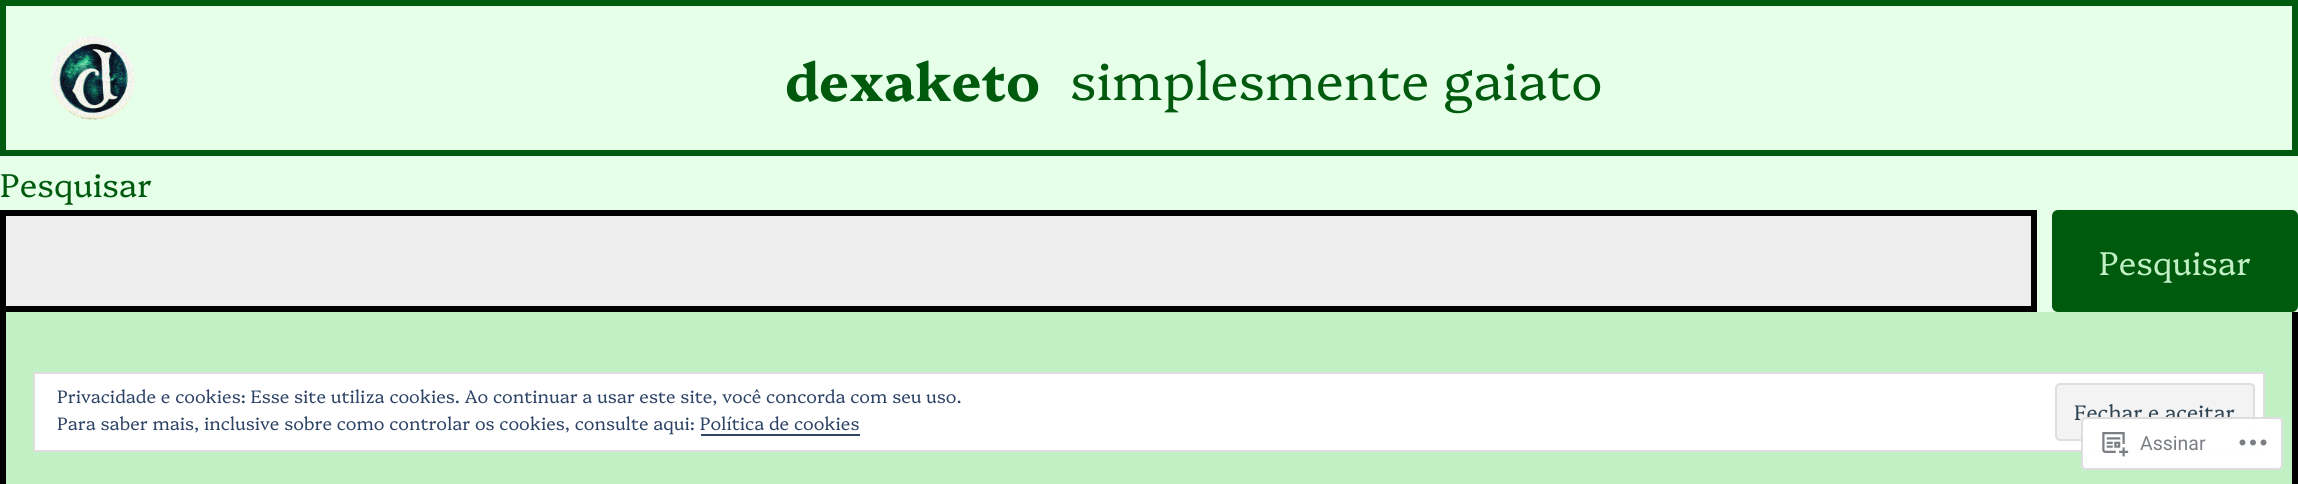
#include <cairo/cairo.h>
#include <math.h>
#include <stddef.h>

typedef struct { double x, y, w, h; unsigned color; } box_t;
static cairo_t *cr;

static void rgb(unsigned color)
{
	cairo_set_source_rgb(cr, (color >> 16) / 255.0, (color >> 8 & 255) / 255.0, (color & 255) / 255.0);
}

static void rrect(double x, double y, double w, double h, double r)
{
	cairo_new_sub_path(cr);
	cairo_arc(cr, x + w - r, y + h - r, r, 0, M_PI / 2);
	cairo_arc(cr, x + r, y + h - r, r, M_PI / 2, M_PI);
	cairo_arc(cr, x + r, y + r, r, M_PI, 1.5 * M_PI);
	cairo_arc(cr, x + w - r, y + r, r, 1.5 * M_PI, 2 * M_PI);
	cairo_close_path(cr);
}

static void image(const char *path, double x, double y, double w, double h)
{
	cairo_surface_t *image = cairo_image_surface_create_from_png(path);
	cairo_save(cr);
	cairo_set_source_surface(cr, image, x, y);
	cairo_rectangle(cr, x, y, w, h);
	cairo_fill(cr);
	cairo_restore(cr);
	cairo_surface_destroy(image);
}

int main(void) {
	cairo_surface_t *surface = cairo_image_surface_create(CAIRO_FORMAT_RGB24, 2298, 484);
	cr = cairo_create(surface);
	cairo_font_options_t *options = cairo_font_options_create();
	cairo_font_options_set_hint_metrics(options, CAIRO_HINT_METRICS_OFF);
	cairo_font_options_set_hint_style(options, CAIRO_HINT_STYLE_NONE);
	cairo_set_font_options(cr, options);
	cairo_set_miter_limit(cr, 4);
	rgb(0xe6ffe9);
	cairo_paint(cr);
	cairo_rectangle(cr, 3, 3, 2292, 150);
	rgb(0x005a0e);
	cairo_set_line_width(cr, 6);
	cairo_stroke(cr);
	image("img/1.png", 51, 36, 84, 84);
	rgb(0xededed);
	cairo_rectangle(cr, 3, 213, 2031, 96);
	cairo_fill_preserve(cr);
	rgb(0x000000);
	cairo_stroke(cr);
	rgb(0x005a0e);
	rrect(2052, 210, 246, 102, 6);
	cairo_fill(cr);
	{
		static const box_t items[] = {
			{2292, 312, 6, 172, 0x000000},
			{0, 312, 6, 172, 0x000000},
			{6, 312, 2286, 172, 0xc2f0c5},
		};
		for (size_t i = 0; i < sizeof items / sizeof *items; i++) {
			rgb(items[i].color);
			cairo_rectangle(cr, items[i].x, items[i].y, items[i].w, items[i].h);
			cairo_fill(cr);
		}
	}
	rgb(0xffffff);
	cairo_rectangle(cr, 34, 373, 2230, 78);
	cairo_fill_preserve(cr);
	rgb(0xdedede);
	cairo_set_line_width(cr, 2);
	cairo_stroke(cr);
	rgb(0xf3f3f3);
	rrect(2056, 384, 198, 56, 4);
	cairo_fill_preserve(cr);
	rgb(0xdedede);
	cairo_stroke(cr);
	rgb(0x2e4467);
	cairo_rectangle(cr, 701, 434, 159, 2);
	cairo_fill(cr);
	cairo_select_font_face(cr, "Platypi", CAIRO_FONT_SLANT_NORMAL, CAIRO_FONT_WEIGHT_BOLD);
	cairo_set_font_size(cr, 52.75);
	rgb(0x005a0e);
	cairo_move_to(cr, 785, 101);
	cairo_show_text(cr, "dexaketo");
	cairo_select_font_face(cr, "Platypi Light", CAIRO_FONT_SLANT_NORMAL, CAIRO_FONT_WEIGHT_NORMAL);
	cairo_move_to(cr, 1070, 100);
	cairo_show_text(cr, "simplesmente gaiato");
	cairo_set_font_size(cr, 33);
	cairo_move_to(cr, 0, 197);
	cairo_show_text(cr, "Pesquisar");
	rgb(0xc2f0c5);
	cairo_move_to(cr, 2099, 275);
	cairo_show_text(cr, "Pesquisar");
	cairo_set_font_size(cr, 18);
	rgb(0x2e4467);
	cairo_move_to(cr, 57, 403);
	cairo_show_text(cr, "Privacidade e cookies: Esse site utiliza cookies. Ao continuar a usar este site, você concorda com seu uso.");
	cairo_set_font_size(cr, 21);
	rgb(0x2e4453);
	cairo_move_to(cr, 2074, 420);
	cairo_show_text(cr, "Fechar e aceitar");
	cairo_set_font_size(cr, 18);
	rgb(0x2e4467);
	cairo_move_to(cr, 57, 430);
	cairo_show_text(cr, "Para saber mais, inclusive sobre como controlar os cookies, consulte aqui: Política de cookies");
	cairo_set_source_rgba(cr, 1, 1, 1, 0.98);
	rrect(2081, 417, 202, 53, 5);
	cairo_fill(cr);
	rrect(2082, 418, 200, 51, 4);
	cairo_set_source_rgba(cr, 0.863, 0.863, 0.871, 0.98);
	cairo_stroke(cr);
	image("img/2.png", 2102, 432, 27, 25);
	cairo_select_font_face(cr, "Roboto", CAIRO_FONT_SLANT_NORMAL, CAIRO_FONT_WEIGHT_NORMAL);
	cairo_set_font_size(cr, 19.5);
	rgb(0x7b7f84);
	cairo_move_to(cr, 2140, 450);
	cairo_show_text(cr, "Assinar");
	image("img/3.png", 2239, 439, 28, 7);
	cairo_surface_write_to_png(surface, "page.png");
	cairo_font_options_destroy(options);
	cairo_destroy(cr);
	cairo_surface_destroy(surface);
	return 0;
}
